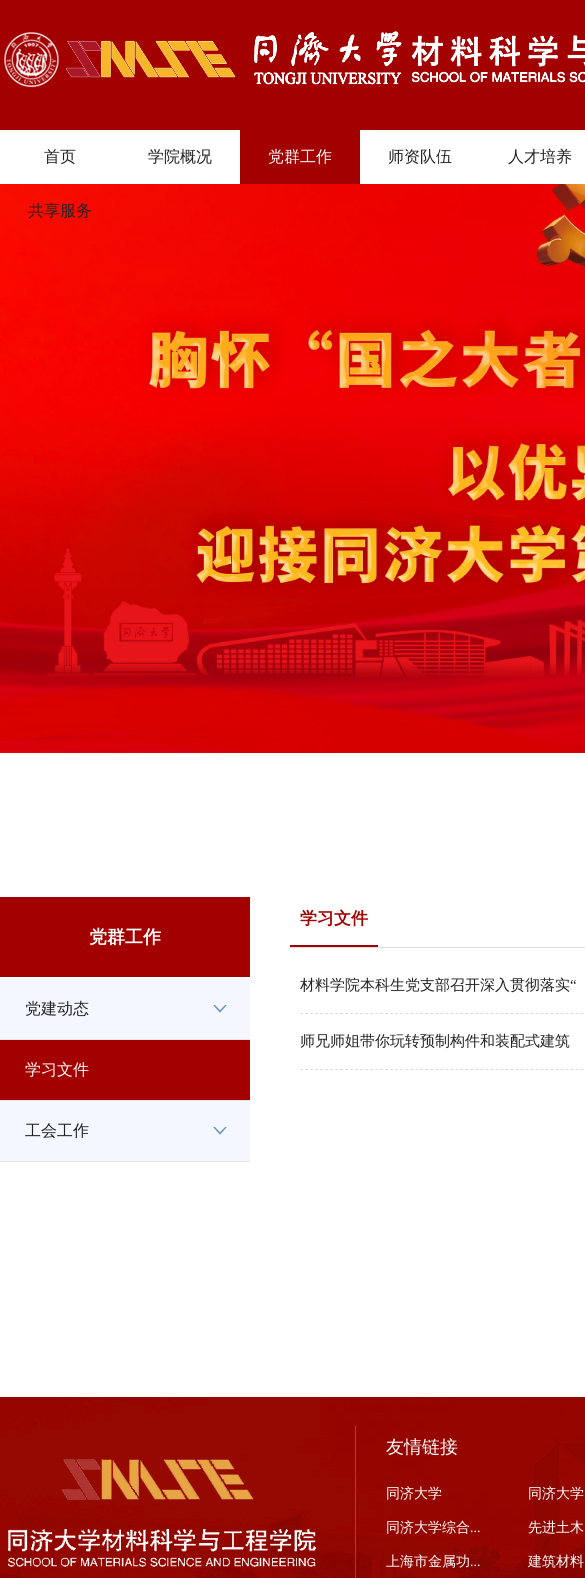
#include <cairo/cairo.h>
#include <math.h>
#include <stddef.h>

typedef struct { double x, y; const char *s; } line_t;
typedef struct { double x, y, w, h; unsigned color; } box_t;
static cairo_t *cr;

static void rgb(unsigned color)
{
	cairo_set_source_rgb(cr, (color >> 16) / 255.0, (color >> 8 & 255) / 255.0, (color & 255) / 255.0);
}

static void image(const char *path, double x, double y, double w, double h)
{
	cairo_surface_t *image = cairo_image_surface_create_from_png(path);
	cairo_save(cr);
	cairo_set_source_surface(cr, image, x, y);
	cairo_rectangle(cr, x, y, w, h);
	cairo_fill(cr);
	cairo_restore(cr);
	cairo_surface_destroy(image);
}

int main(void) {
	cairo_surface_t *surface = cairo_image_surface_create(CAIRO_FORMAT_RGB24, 585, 1578);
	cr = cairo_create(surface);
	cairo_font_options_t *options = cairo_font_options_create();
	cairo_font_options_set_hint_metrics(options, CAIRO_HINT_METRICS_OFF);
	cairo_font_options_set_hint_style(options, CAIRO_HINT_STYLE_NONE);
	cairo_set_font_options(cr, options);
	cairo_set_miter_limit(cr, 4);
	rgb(0xffffff);
	cairo_paint(cr);
	rgb(0xa30000);
	cairo_rectangle(cr, 0, 0, 585, 130);
	cairo_fill(cr);
	image("img/1.png", 4, 31, 581, 57);
	cairo_rectangle(cr, 240, 130, 120, 54);
	cairo_fill(cr);
	image("img/2.png", 0, 184, 585, 569);
	{
		static const box_t items[] = {
			{0, 897, 250, 80, 0xa30000},
			{0, 979, 250, 182, 0xf4f7ff},
			{0, 1039, 250, 1, 0xe6e5e5},
		};
		for (size_t i = 0; i < sizeof items / sizeof *items; i++) {
			rgb(items[i].color);
			cairo_rectangle(cr, items[i].x, items[i].y, items[i].w, items[i].h);
			cairo_fill(cr);
		}
	}
	image("img/3.png", 213, 1005, 14, 8);
	{
		static const box_t items[] = {
			{0, 1100, 250, 1, 0xe6e5e5},
			{0, 1040, 250, 60, 0xa30000},
			{0, 1161, 250, 1, 0xe6e5e5},
		};
		for (size_t i = 0; i < sizeof items / sizeof *items; i++) {
			rgb(items[i].color);
			cairo_rectangle(cr, items[i].x, items[i].y, items[i].w, items[i].h);
			cairo_fill(cr);
		}
	}
	image("img/3.png", 213, 1127, 14, 8);
	rgb(0xdddddd);
	cairo_rectangle(cr, 290, 947, 295, 1);
	cairo_fill(cr);
	rgb(0xa30000);
	cairo_rectangle(cr, 290, 945, 88, 2);
	cairo_fill(cr);
	cairo_new_path(cr);
	cairo_move_to(cr, 300, 1013.5);
	cairo_line_to(cr, 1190, 1013.5);
	rgb(0xdcdcdc);
	cairo_set_line_width(cr, 1);
	cairo_set_dash(cr, (double[]){3, 2.01}, 2, 0);
	cairo_stroke(cr);
	cairo_new_path(cr);
	cairo_move_to(cr, 300, 1069.5);
	cairo_line_to(cr, 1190, 1069.5);
	cairo_stroke(cr);
	image("img/4.png", 0, 1397, 585, 181);
	image("img/5.png", 8, 1459, 308, 108);
	cairo_select_font_face(cr, "WenQuanYi Zen Hei Medium", CAIRO_FONT_SLANT_NORMAL, CAIRO_FONT_WEIGHT_NORMAL);
	cairo_set_font_size(cr, 16);
	rgb(0x222222);
	cairo_move_to(cr, 44, 162);
	cairo_show_text(cr, "首页");
	cairo_move_to(cr, 148, 162);
	cairo_show_text(cr, "学院概况");
	rgb(0xffffff);
	cairo_move_to(cr, 268, 162);
	cairo_show_text(cr, "党群工作");
	rgb(0x222222);
	{
		static const line_t items[] = {
			{388, 162, "师资队伍"},
			{508, 162, "人才培养"},
			{28, 216, "共享服务"},
		};
		for (size_t i = 0; i < sizeof items / sizeof *items; i++) {
			cairo_move_to(cr, items[i].x, items[i].y);
			cairo_show_text(cr, items[i].s);
		}
	}
	cairo_select_font_face(cr, "WenQuanYi Zen Hei", CAIRO_FONT_SLANT_NORMAL, CAIRO_FONT_WEIGHT_BOLD);
	cairo_set_font_size(cr, 18);
	rgb(0xffffff);
	cairo_move_to(cr, 89, 943);
	cairo_show_text(cr, "党群工作");
	cairo_select_font_face(cr, "WenQuanYi Zen Hei Medium", CAIRO_FONT_SLANT_NORMAL, CAIRO_FONT_WEIGHT_NORMAL);
	cairo_set_font_size(cr, 16);
	rgb(0x222222);
	cairo_move_to(cr, 25, 1014);
	cairo_show_text(cr, "党建动态");
	rgb(0xffffff);
	cairo_move_to(cr, 25, 1075);
	cairo_show_text(cr, "学习文件");
	rgb(0x222222);
	cairo_move_to(cr, 25, 1136);
	cairo_show_text(cr, "工会工作");
	cairo_select_font_face(cr, "WenQuanYi Zen Hei", CAIRO_FONT_SLANT_NORMAL, CAIRO_FONT_WEIGHT_BOLD);
	cairo_set_font_size(cr, 17);
	rgb(0xa30000);
	cairo_move_to(cr, 300, 924);
	cairo_show_text(cr, "学习文件");
	cairo_select_font_face(cr, "WenQuanYi Zen Hei Medium", CAIRO_FONT_SLANT_NORMAL, CAIRO_FONT_WEIGHT_NORMAL);
	cairo_set_font_size(cr, 15);
	rgb(0x222222);
	cairo_move_to(cr, 300, 990);
	cairo_show_text(cr, "材料学院本科生党支部召开深入贯彻落实");
	cairo_select_font_face(cr, "Liberation Serif", CAIRO_FONT_SLANT_NORMAL, CAIRO_FONT_WEIGHT_NORMAL);
	cairo_move_to(cr, 570, 990);
	cairo_show_text(cr, "“");
	cairo_select_font_face(cr, "WenQuanYi Zen Hei Medium", CAIRO_FONT_SLANT_NORMAL, CAIRO_FONT_WEIGHT_NORMAL);
	cairo_move_to(cr, 300, 1046);
	cairo_show_text(cr, "师兄师姐带你玩转预制构件和装配式建筑");
	cairo_set_font_size(cr, 18);
	rgb(0xffffff);
	cairo_move_to(cr, 386, 1453);
	cairo_show_text(cr, "友情链接");
	cairo_set_font_size(cr, 14);
	{
		static const line_t items[] = {
			{386, 1498, "同济大学"},
			{528, 1498, "同济大学"},
			{386, 1532, "同济大学综合"},
		};
		for (size_t i = 0; i < sizeof items / sizeof *items; i++) {
			cairo_move_to(cr, items[i].x, items[i].y);
			cairo_show_text(cr, items[i].s);
		}
	}
	cairo_select_font_face(cr, "Liberation Serif", CAIRO_FONT_SLANT_NORMAL, CAIRO_FONT_WEIGHT_NORMAL);
	cairo_move_to(cr, 470, 1532);
	cairo_show_text(cr, "...");
	cairo_select_font_face(cr, "WenQuanYi Zen Hei Medium", CAIRO_FONT_SLANT_NORMAL, CAIRO_FONT_WEIGHT_NORMAL);
	cairo_move_to(cr, 528, 1532);
	cairo_show_text(cr, "先进土木");
	cairo_move_to(cr, 386, 1566);
	cairo_show_text(cr, "上海市金属功");
	cairo_select_font_face(cr, "Liberation Serif", CAIRO_FONT_SLANT_NORMAL, CAIRO_FONT_WEIGHT_NORMAL);
	cairo_move_to(cr, 470, 1566);
	cairo_show_text(cr, "...");
	cairo_select_font_face(cr, "WenQuanYi Zen Hei Medium", CAIRO_FONT_SLANT_NORMAL, CAIRO_FONT_WEIGHT_NORMAL);
	cairo_move_to(cr, 528, 1566);
	cairo_show_text(cr, "建筑材料");
	cairo_surface_write_to_png(surface, "page.png");
	cairo_font_options_destroy(options);
	cairo_destroy(cr);
	cairo_surface_destroy(surface);
	return 0;
}
